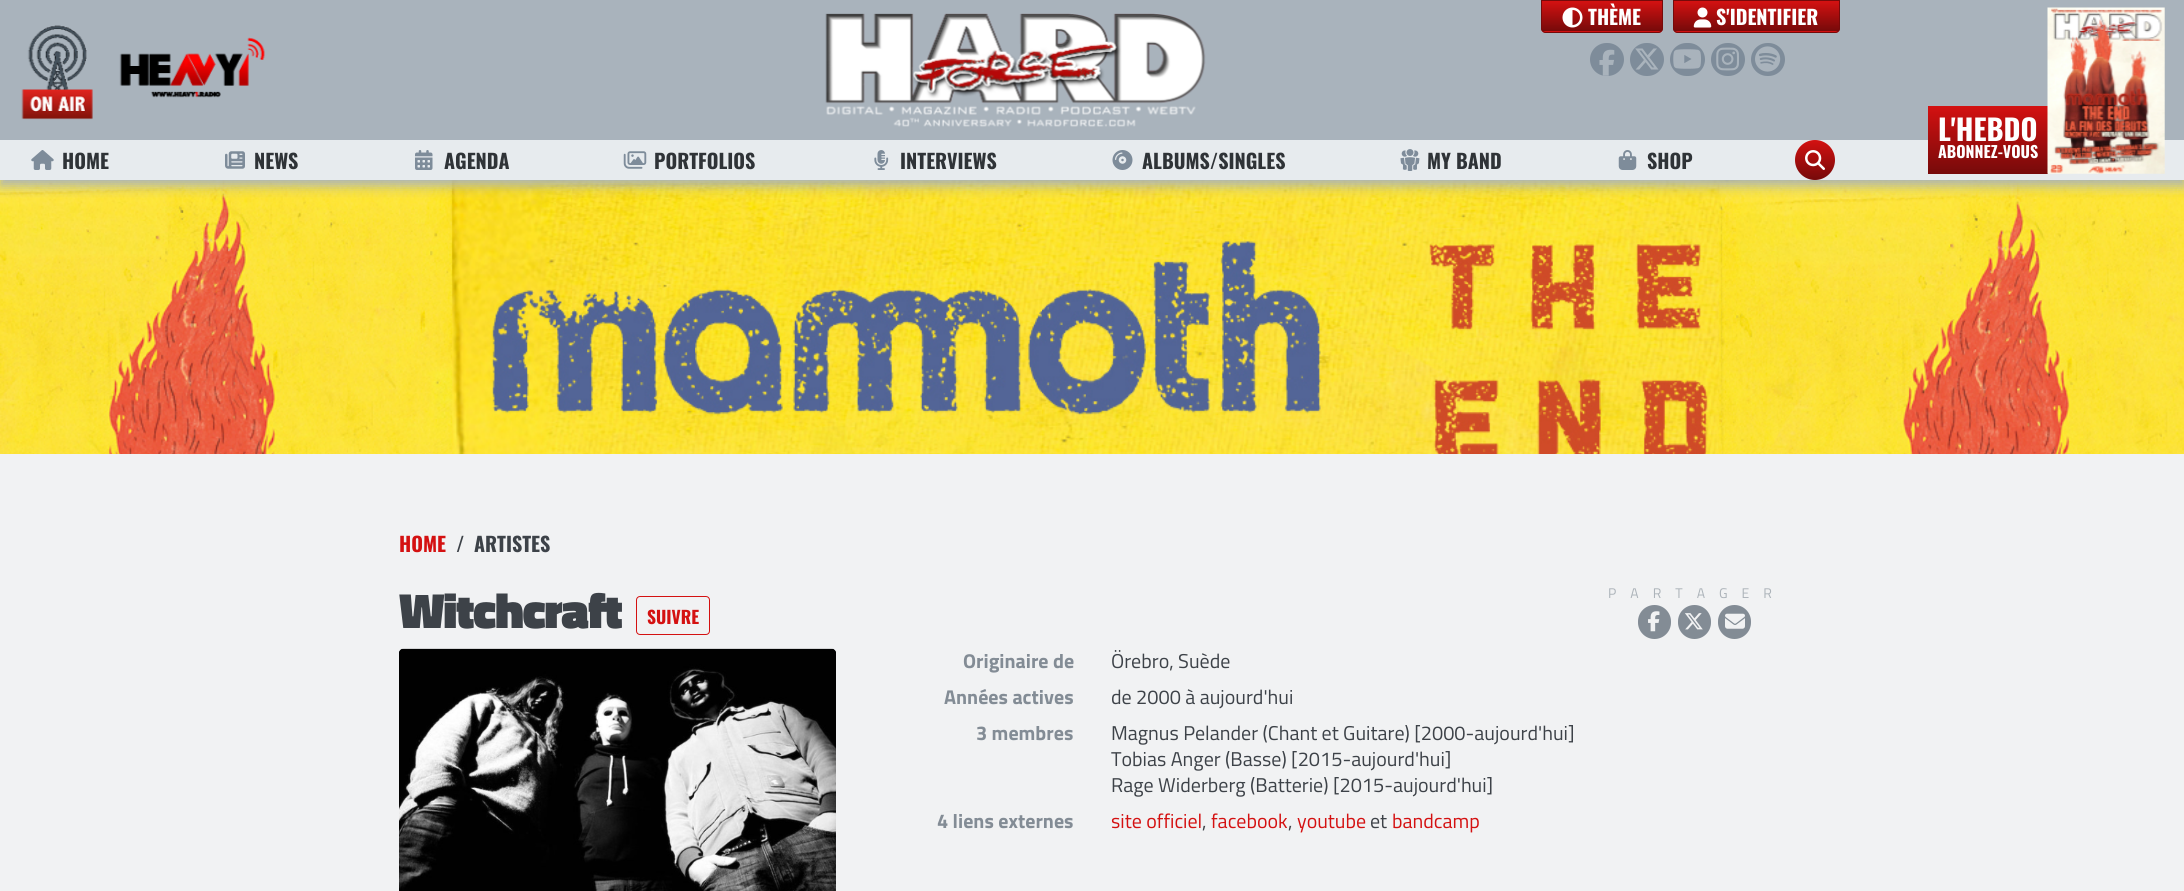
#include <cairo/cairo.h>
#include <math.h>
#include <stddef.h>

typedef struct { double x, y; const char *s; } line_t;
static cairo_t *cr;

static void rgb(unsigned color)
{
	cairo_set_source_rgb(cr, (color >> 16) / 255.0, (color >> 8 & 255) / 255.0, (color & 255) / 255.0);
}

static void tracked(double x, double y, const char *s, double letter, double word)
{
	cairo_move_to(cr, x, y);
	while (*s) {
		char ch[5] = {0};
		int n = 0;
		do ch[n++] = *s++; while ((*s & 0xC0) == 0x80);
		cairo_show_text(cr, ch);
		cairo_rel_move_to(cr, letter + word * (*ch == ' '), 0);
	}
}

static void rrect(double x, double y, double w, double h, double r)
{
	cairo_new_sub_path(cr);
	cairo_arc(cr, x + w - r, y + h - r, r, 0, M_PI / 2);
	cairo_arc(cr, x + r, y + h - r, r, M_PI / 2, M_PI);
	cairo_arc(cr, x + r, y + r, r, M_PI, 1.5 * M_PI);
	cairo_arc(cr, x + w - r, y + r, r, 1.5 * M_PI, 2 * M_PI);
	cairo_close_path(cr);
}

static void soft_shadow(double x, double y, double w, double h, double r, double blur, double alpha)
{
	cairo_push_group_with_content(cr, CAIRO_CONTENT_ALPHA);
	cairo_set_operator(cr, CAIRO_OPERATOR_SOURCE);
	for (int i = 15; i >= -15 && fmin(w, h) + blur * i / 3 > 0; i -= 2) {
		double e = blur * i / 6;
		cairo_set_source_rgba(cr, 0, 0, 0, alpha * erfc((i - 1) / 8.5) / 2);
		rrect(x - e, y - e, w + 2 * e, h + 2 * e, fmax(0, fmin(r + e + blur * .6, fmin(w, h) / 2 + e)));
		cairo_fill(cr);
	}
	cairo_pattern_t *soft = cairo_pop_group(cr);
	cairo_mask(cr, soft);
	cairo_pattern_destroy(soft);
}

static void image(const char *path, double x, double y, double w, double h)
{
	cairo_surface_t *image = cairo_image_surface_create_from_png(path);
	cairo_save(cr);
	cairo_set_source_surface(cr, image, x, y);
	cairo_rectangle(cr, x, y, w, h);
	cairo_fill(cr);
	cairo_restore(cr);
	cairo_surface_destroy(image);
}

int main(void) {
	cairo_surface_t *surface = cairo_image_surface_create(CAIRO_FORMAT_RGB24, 2184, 891);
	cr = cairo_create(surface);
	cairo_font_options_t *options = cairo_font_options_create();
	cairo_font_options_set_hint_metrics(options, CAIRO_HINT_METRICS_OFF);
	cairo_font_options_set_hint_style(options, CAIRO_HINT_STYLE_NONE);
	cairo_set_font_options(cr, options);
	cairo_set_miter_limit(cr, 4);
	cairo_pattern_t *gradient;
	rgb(0xa9b3bc);
	cairo_paint(cr);
	image("img/21.png", 0, 180, 2184, 274);
	cairo_save(cr);
	cairo_rectangle(cr, 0, 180, 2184, 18);
	cairo_clip(cr);
	soft_shadow(0, 6, 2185, 180, 0, 6, 1);
	cairo_restore(cr);
	image("img/1.png", 21, 25, 72, 95);
	image("img/2.png", 119, 37, 146, 61);
	image("img/3.png", 825, 13, 381, 114);
	cairo_save(cr);
	cairo_new_path(cr);
	cairo_move_to(cr, 1541, 0);
	cairo_line_to(cr, 1663, 0);
	cairo_line_to(cr, 1663, 28);
	cairo_curve_to(cr, 1663, 31, 1661, 33, 1658, 33);
	cairo_line_to(cr, 1546, 33);
	cairo_curve_to(cr, 1543, 33, 1541, 31, 1541, 28);
	cairo_close_path(cr);
	cairo_clip(cr);
	gradient = cairo_pattern_create_linear(1602, 1.2, 1602, 31);
	cairo_pattern_add_color_stop_rgba(gradient, 0, 0.831, 0.067, 0.067, 1);
	cairo_pattern_add_color_stop_rgba(gradient, 1, 0.463, 0.039, 0.039, 1);
	cairo_set_source(cr, gradient);
	cairo_pattern_destroy(gradient);
	cairo_rectangle(cr, 1541, 1, 122, 30);
	cairo_fill(cr);
	gradient = cairo_pattern_create_linear(1602, 31, 1602, 61);
	cairo_pattern_add_color_stop_rgba(gradient, 0, 0.831, 0.067, 0.067, 1);
	cairo_pattern_add_color_stop_rgba(gradient, 1, 0.463, 0.039, 0.039, 1);
	cairo_set_source(cr, gradient);
	cairo_pattern_destroy(gradient);
	cairo_rectangle(cr, 1541, 31, 122, 2);
	cairo_fill(cr);
	cairo_restore(cr);
	cairo_new_path(cr);
	cairo_move_to(cr, 1541.5, 0.5);
	cairo_line_to(cr, 1662.5, 0.5);
	cairo_line_to(cr, 1662.5, 28);
	cairo_curve_to(cr, 1662.5, 30.5, 1660.5, 32.5, 1658, 32.5);
	cairo_line_to(cr, 1546, 32.5);
	cairo_curve_to(cr, 1543.5, 32.5, 1541.5, 30.5, 1541.5, 28);
	cairo_close_path(cr);
	rgb(0x760a0a);
	cairo_set_line_width(cr, 1);
	cairo_stroke(cr);
	image("img/4.png", 1562, 7, 21, 21);
	cairo_save(cr);
	cairo_new_path(cr);
	cairo_move_to(cr, 1673, 0);
	cairo_line_to(cr, 1840, 0);
	cairo_line_to(cr, 1840, 28);
	cairo_curve_to(cr, 1840, 31, 1838, 33, 1835, 33);
	cairo_line_to(cr, 1678, 33);
	cairo_curve_to(cr, 1675, 33, 1673, 31, 1673, 28);
	cairo_close_path(cr);
	cairo_clip(cr);
	gradient = cairo_pattern_create_linear(1756, 1.2, 1756, 31);
	cairo_pattern_add_color_stop_rgba(gradient, 0, 0.831, 0.067, 0.067, 1);
	cairo_pattern_add_color_stop_rgba(gradient, 1, 0.463, 0.039, 0.039, 1);
	cairo_set_source(cr, gradient);
	cairo_pattern_destroy(gradient);
	cairo_rectangle(cr, 1673, 1, 167, 30);
	cairo_fill(cr);
	gradient = cairo_pattern_create_linear(1756, 31, 1756, 61);
	cairo_pattern_add_color_stop_rgba(gradient, 0, 0.831, 0.067, 0.067, 1);
	cairo_pattern_add_color_stop_rgba(gradient, 1, 0.463, 0.039, 0.039, 1);
	cairo_set_source(cr, gradient);
	cairo_pattern_destroy(gradient);
	cairo_rectangle(cr, 1673, 31, 167, 2);
	cairo_fill(cr);
	cairo_restore(cr);
	cairo_new_path(cr);
	cairo_move_to(cr, 1673.5, 0.5);
	cairo_line_to(cr, 1839.5, 0.5);
	cairo_line_to(cr, 1839.5, 28);
	cairo_curve_to(cr, 1839.5, 30.5, 1837.5, 32.5, 1835, 32.5);
	cairo_line_to(cr, 1678, 32.5);
	cairo_curve_to(cr, 1675.5, 32.5, 1673.5, 30.5, 1673.5, 28);
	cairo_close_path(cr);
	cairo_stroke(cr);
	image("img/5.png", 1693, 7, 19, 21);
	rgb(0x7e8c9a);
	rrect(1590, 43, 34, 33, 16.5);
	cairo_fill(cr);
	image("img/6.png", 1599, 49, 16, 27);
	rrect(1630, 43, 34, 33, 16.5);
	cairo_fill(cr);
	image("img/7.png", 1635, 48, 24, 22);
	rrect(1670, 43, 35, 33, 16.5);
	cairo_fill(cr);
	image("img/8.png", 1673, 49, 28, 20);
	rrect(1711, 43, 34, 33, 16.5);
	cairo_fill(cr);
	image("img/9.png", 1716, 47, 23, 24);
	rrect(1751, 43, 34, 33, 16.5);
	cairo_fill(cr);
	image("img/10.png", 1755, 46, 26, 26);
	rgb(0xe7ebee);
	cairo_rectangle(cr, 0, 140, 2184, 40);
	cairo_fill(cr);
	image("img/11.png", 31, 150, 23, 20);
	image("img/12.png", 225, 151, 20, 18);
	image("img/13.png", 415, 150, 18, 20);
	image("img/14.png", 623, 151, 24, 18);
	image("img/15.png", 874, 150, 15, 20);
	image("img/16.png", 1112, 150, 21, 20);
	image("img/17.png", 1400, 149, 20, 22);
	image("img/18.png", 1618, 150, 19, 20);
	gradient = cairo_pattern_create_linear(1815, 140, 1815, 180);
	cairo_pattern_add_color_stop_rgba(gradient, 0, 0.831, 0.067, 0.067, 1);
	cairo_pattern_add_color_stop_rgba(gradient, 1, 0.463, 0.039, 0.039, 1);
	cairo_set_source(cr, gradient);
	cairo_pattern_destroy(gradient);
	cairo_arc(cr, 1815, 160, 20, 0, 2 * M_PI);
	cairo_fill(cr);
	image("img/19.png", 1805, 150, 20, 20);
	gradient = cairo_pattern_create_linear(1988, 106, 1988, 174);
	cairo_pattern_add_color_stop_rgba(gradient, 0, 0.831, 0.067, 0.067, 1);
	cairo_pattern_add_color_stop_rgba(gradient, 1, 0.463, 0.039, 0.039, 1);
	cairo_set_source(cr, gradient);
	cairo_pattern_destroy(gradient);
	cairo_rectangle(cr, 1928, 106, 120, 68);
	cairo_fill(cr);
	image("img/20.png", 2047, 7, 118, 167);
	rgb(0xf1f2f3);
	cairo_rectangle(cr, 0, 454, 2184, 437);
	cairo_fill(cr);
	rrect(636.5, 596.5, 73, 38, 3.5);
	rgb(0xd41111);
	cairo_stroke(cr);
	rgb(0x838c95);
	rrect(1638, 605, 33, 34, 16.5);
	cairo_fill(cr);
	image("img/22.png", 1648, 611, 12, 21);
	rrect(1678, 605, 33, 34, 16.5);
	cairo_fill(cr);
	image("img/23.png", 1685, 613, 18, 17);
	rrect(1718, 605, 33, 34, 16.5);
	cairo_fill(cr);
	image("img/24.png", 1725, 613, 20, 16);
	image("img/25.png", 399, 648, 437, 243);
	cairo_select_font_face(cr, "Oswald", CAIRO_FONT_SLANT_NORMAL, CAIRO_FONT_WEIGHT_BOLD);
	cairo_set_font_size(cr, 20);
	rgb(0xffffff);
	cairo_move_to(cr, 1588, 25);
	cairo_show_text(cr, "THÈME");
	cairo_move_to(cr, 1716, 25);
	cairo_show_text(cr, "S'IDENTIFIER");
	rgb(0x2f3337);
	{
		static const line_t items[] = {
			{62, 169, "HOME"},
			{254, 169, "NEWS"},
			{444, 169, "AGENDA"},
			{654, 169, "PORTFOLIOS"},
			{900, 169, "INTERVIEWS"},
			{1142, 169, "ALBUMS/SINGLES"},
			{1427, 169, "MY BAND"},
			{1647, 169, "SHOP"},
		};
		for (size_t i = 0; i < sizeof items / sizeof *items; i++) {
			cairo_move_to(cr, items[i].x, items[i].y);
			cairo_show_text(cr, items[i].s);
		}
	}
	cairo_set_font_size(cr, 29);
	rgb(0xffffff);
	cairo_move_to(cr, 1938, 141);
	cairo_show_text(cr, "L'HEBDO");
	cairo_set_font_size(cr, 16);
	cairo_move_to(cr, 1938, 158);
	cairo_show_text(cr, "ABONNEZ-VOUS");
	cairo_set_font_size(cr, 20);
	rgb(0xd41111);
	cairo_move_to(cr, 399, 552);
	cairo_show_text(cr, "HOME");
	rgb(0x3d4248);
	cairo_move_to(cr, 456, 552);
	cairo_show_text(cr, "/");
	cairo_move_to(cr, 474, 552);
	cairo_show_text(cr, "ARTISTES");
	cairo_select_font_face(cr, "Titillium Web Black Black", CAIRO_FONT_SLANT_NORMAL, CAIRO_FONT_WEIGHT_NORMAL);
	cairo_set_font_size(cr, 50);
	tracked(399, 628, "Witchcraft", -1.4, 0);
	cairo_select_font_face(cr, "Oswald", CAIRO_FONT_SLANT_NORMAL, CAIRO_FONT_WEIGHT_BOLD);
	cairo_set_font_size(cr, 17.5);
	rgb(0xd41111);
	cairo_move_to(cr, 647, 624);
	cairo_show_text(cr, "SUIVRE");
	cairo_select_font_face(cr, "Titillium Web", CAIRO_FONT_SLANT_NORMAL, CAIRO_FONT_WEIGHT_NORMAL);
	cairo_set_font_size(cr, 14);
	rgb(0xacb3b9);
	tracked(1608, 598, "PARTAGER", 14, 0);
	cairo_select_font_face(cr, "Titillium Web", CAIRO_FONT_SLANT_NORMAL, CAIRO_FONT_WEIGHT_BOLD);
	cairo_set_font_size(cr, 20);
	rgb(0x838c95);
	cairo_move_to(cr, 963, 668);
	cairo_show_text(cr, "Originaire de");
	cairo_select_font_face(cr, "Titillium Web", CAIRO_FONT_SLANT_NORMAL, CAIRO_FONT_WEIGHT_NORMAL);
	rgb(0x3d4248);
	cairo_move_to(cr, 1111, 668);
	cairo_show_text(cr, "Örebro, Suède");
	cairo_select_font_face(cr, "Titillium Web", CAIRO_FONT_SLANT_NORMAL, CAIRO_FONT_WEIGHT_BOLD);
	rgb(0x838c95);
	cairo_move_to(cr, 944, 704);
	cairo_show_text(cr, "Années actives");
	cairo_select_font_face(cr, "Titillium Web", CAIRO_FONT_SLANT_NORMAL, CAIRO_FONT_WEIGHT_NORMAL);
	rgb(0x3d4248);
	cairo_move_to(cr, 1111, 704);
	cairo_show_text(cr, "de 2000 à aujourd'hui");
	cairo_select_font_face(cr, "Titillium Web", CAIRO_FONT_SLANT_NORMAL, CAIRO_FONT_WEIGHT_BOLD);
	rgb(0x838c95);
	cairo_move_to(cr, 976, 740);
	cairo_show_text(cr, "3 membres");
	cairo_select_font_face(cr, "Titillium Web", CAIRO_FONT_SLANT_NORMAL, CAIRO_FONT_WEIGHT_NORMAL);
	rgb(0x3d4248);
	{
		static const line_t items[] = {
			{1111, 740, "Magnus Pelander (Chant et Guitare) [2000-aujourd'hui]"},
			{1111, 766, "Tobias Anger (Basse) [2015-aujourd'hui]"},
			{1111, 792, "Rage Widerberg (Batterie) [2015-aujourd'hui]"},
		};
		for (size_t i = 0; i < sizeof items / sizeof *items; i++) {
			cairo_move_to(cr, items[i].x, items[i].y);
			cairo_show_text(cr, items[i].s);
		}
	}
	cairo_select_font_face(cr, "Titillium Web", CAIRO_FONT_SLANT_NORMAL, CAIRO_FONT_WEIGHT_BOLD);
	rgb(0x838c95);
	cairo_move_to(cr, 937, 828);
	cairo_show_text(cr, "4 liens externes");
	cairo_select_font_face(cr, "Titillium Web", CAIRO_FONT_SLANT_NORMAL, CAIRO_FONT_WEIGHT_NORMAL);
	rgb(0xd41111);
	cairo_move_to(cr, 1111, 828);
	cairo_show_text(cr, "site officiel");
	rgb(0x3d4248);
	cairo_move_to(cr, 1202, 828);
	cairo_show_text(cr, ",");
	rgb(0xd41111);
	cairo_move_to(cr, 1211, 828);
	cairo_show_text(cr, "facebook");
	rgb(0x3d4248);
	cairo_move_to(cr, 1288, 828);
	cairo_show_text(cr, ",");
	rgb(0xd41111);
	cairo_move_to(cr, 1297, 828);
	cairo_show_text(cr, "youtube");
	rgb(0x3d4248);
	cairo_move_to(cr, 1370, 828);
	cairo_show_text(cr, "et");
	rgb(0xd41111);
	cairo_move_to(cr, 1392, 828);
	cairo_show_text(cr, "bandcamp");
	cairo_surface_write_to_png(surface, "page.png");
	cairo_font_options_destroy(options);
	cairo_destroy(cr);
	cairo_surface_destroy(surface);
	return 0;
}
